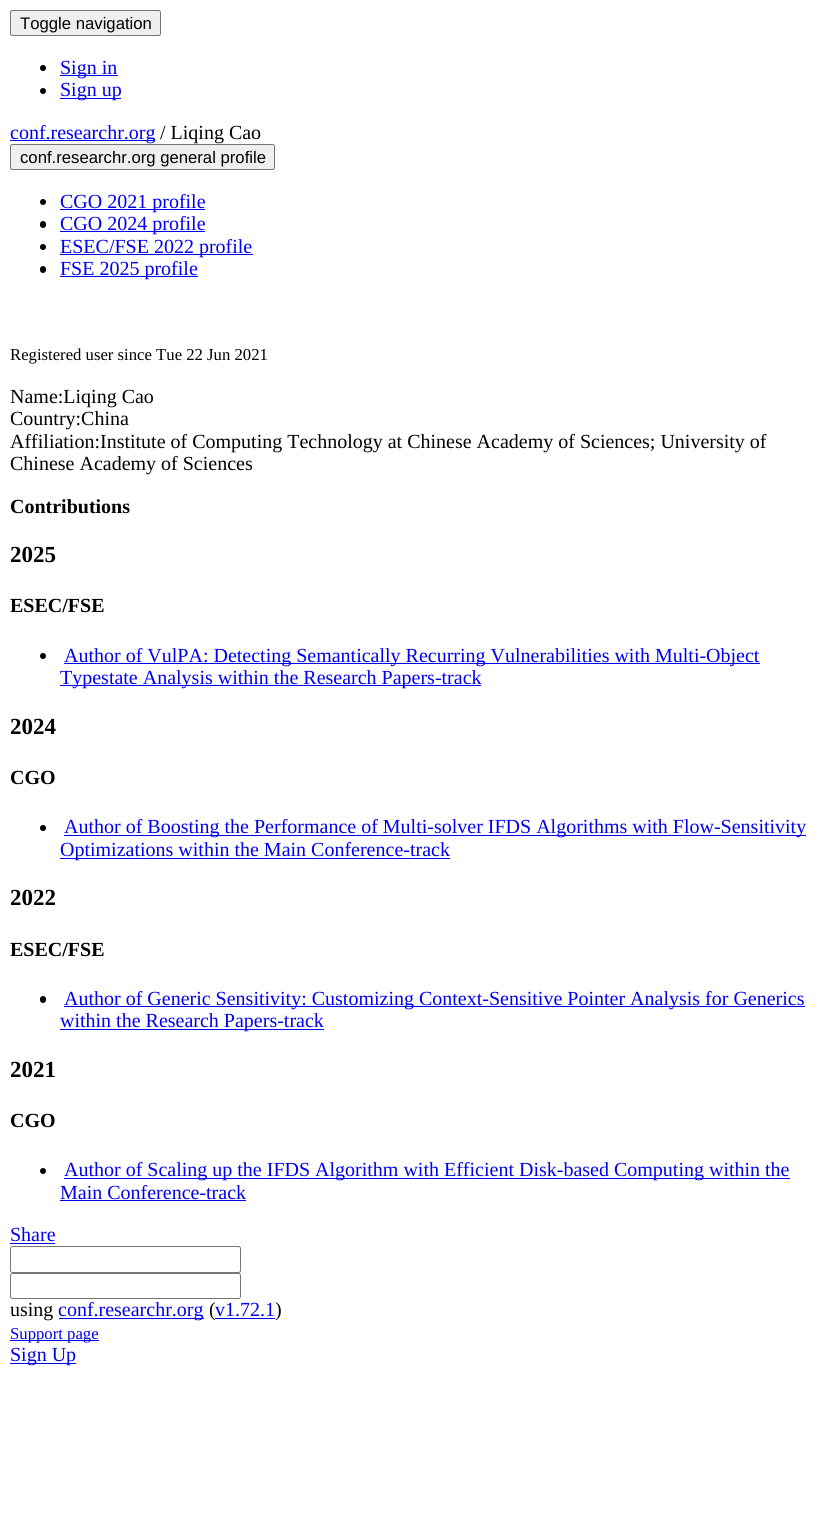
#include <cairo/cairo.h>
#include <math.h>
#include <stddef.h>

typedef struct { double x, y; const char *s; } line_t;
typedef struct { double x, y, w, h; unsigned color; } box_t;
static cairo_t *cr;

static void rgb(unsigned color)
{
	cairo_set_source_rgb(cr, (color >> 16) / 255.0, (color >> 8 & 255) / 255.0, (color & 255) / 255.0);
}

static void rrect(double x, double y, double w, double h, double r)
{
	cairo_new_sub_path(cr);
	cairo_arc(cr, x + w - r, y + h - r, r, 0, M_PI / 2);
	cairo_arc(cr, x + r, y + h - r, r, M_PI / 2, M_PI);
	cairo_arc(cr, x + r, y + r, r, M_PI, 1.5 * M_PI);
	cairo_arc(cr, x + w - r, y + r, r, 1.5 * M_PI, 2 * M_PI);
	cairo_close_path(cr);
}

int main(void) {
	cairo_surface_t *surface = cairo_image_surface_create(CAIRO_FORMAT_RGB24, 825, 1520);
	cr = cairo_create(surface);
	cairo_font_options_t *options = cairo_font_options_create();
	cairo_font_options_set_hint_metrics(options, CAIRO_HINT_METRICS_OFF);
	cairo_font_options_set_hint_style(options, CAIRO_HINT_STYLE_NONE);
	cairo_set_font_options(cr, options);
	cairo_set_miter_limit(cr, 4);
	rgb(0xffffff);
	cairo_paint(cr);
	rgb(0xefefef);
	rrect(10.5, 10.5, 150, 25, 2);
	cairo_fill_preserve(cr);
	rgb(0x767676);
	cairo_set_line_width(cr, 1);
	cairo_stroke(cr);
	rgb(0x000000);
	cairo_arc(cr, 43, 68, 3, 0, 2 * M_PI);
	cairo_fill(cr);
	rgb(0x0000ee);
	cairo_rectangle(cr, 60, 75, 58, 1);
	cairo_fill(cr);
	rgb(0x000000);
	cairo_arc(cr, 43, 91, 3, 0, 2 * M_PI);
	cairo_fill(cr);
	rgb(0x0000ee);
	cairo_rectangle(cr, 60, 98, 61, 1);
	cairo_fill(cr);
	cairo_rectangle(cr, 10, 140, 145, 1);
	cairo_fill(cr);
	rgb(0xefefef);
	rrect(10.5, 144.5, 264, 25, 2);
	cairo_fill_preserve(cr);
	rgb(0x767676);
	cairo_stroke(cr);
	rgb(0x000000);
	cairo_arc(cr, 43, 202, 3, 0, 2 * M_PI);
	cairo_fill(cr);
	rgb(0x0000ee);
	cairo_rectangle(cr, 60, 209, 145, 1);
	cairo_fill(cr);
	rgb(0x000000);
	rrect(40, 221, 6, 7, 3);
	cairo_fill(cr);
	rgb(0x0000ee);
	cairo_rectangle(cr, 60, 231, 145, 1);
	cairo_fill(cr);
	rgb(0x000000);
	cairo_arc(cr, 43, 247, 3, 0, 2 * M_PI);
	cairo_fill(cr);
	rgb(0x0000ee);
	cairo_rectangle(cr, 60, 254, 193, 1);
	cairo_fill(cr);
	rgb(0x000000);
	rrect(40, 266, 6, 7, 3);
	cairo_fill(cr);
	rgb(0x0000ee);
	cairo_rectangle(cr, 60, 276, 138, 1);
	cairo_fill(cr);
	rgb(0x000000);
	cairo_arc(cr, 43, 656, 3, 0, 2 * M_PI);
	cairo_fill(cr);
	rgb(0x0000ee);
	cairo_rectangle(cr, 64, 663, 696, 1);
	cairo_fill(cr);
	cairo_rectangle(cr, 60, 685, 421, 1);
	cairo_fill(cr);
	rgb(0x000000);
	cairo_arc(cr, 43, 828, 3, 0, 2 * M_PI);
	cairo_fill(cr);
	rgb(0x0000ee);
	cairo_rectangle(cr, 64, 835, 742, 1);
	cairo_fill(cr);
	cairo_rectangle(cr, 60, 858, 390, 1);
	cairo_fill(cr);
	rgb(0x000000);
	rrect(40, 996, 6, 7, 3);
	cairo_fill(cr);
	rgb(0x0000ee);
	cairo_rectangle(cr, 64, 1006, 741, 1);
	cairo_fill(cr);
	cairo_rectangle(cr, 60, 1029, 264, 1);
	cairo_fill(cr);
	rgb(0x000000);
	cairo_arc(cr, 43, 1171, 3, 0, 2 * M_PI);
	cairo_fill(cr);
	{
		static const box_t items[] = {
			{64, 1178, 726, 1, 0x0000ee},
			{60, 1200, 186, 1, 0x0000ee},
			{10, 1243, 45, 1, 0x0000ee},
		};
		for (size_t i = 0; i < sizeof items / sizeof *items; i++) {
			rgb(items[i].color);
			cairo_rectangle(cr, items[i].x, items[i].y, items[i].w, items[i].h);
			cairo_fill(cr);
		}
	}
	rrect(10.5, 1246.5, 230, 26, 2);
	rgb(0x767676);
	cairo_stroke(cr);
	rrect(10.5, 1273.5, 230, 25, 2);
	cairo_stroke(cr);
	{
		static const box_t items[] = {
			{59, 1318, 145, 1, 0x0000ee},
			{215, 1318, 60, 1, 0x0000ee},
			{10, 1340, 89, 1, 0x0000ee},
			{10, 1363, 66, 1, 0x0000ee},
		};
		for (size_t i = 0; i < sizeof items / sizeof *items; i++) {
			rgb(items[i].color);
			cairo_rectangle(cr, items[i].x, items[i].y, items[i].w, items[i].h);
			cairo_fill(cr);
		}
	}
	cairo_select_font_face(cr, "Liberation Sans", CAIRO_FONT_SLANT_NORMAL, CAIRO_FONT_WEIGHT_NORMAL);
	cairo_set_font_size(cr, 16.7);
	rgb(0x000000);
	cairo_move_to(cr, 20, 29);
	cairo_show_text(cr, "Toggle navigation");
	cairo_select_font_face(cr, "Liberation Serif", CAIRO_FONT_SLANT_NORMAL, CAIRO_FONT_WEIGHT_NORMAL);
	cairo_set_font_size(cr, 20);
	rgb(0x0000ee);
	{
		static const line_t items[] = {
			{60, 74, "Sign in"},
			{60, 96, "Sign up"},
			{10, 139, "conf.researchr.org"},
		};
		for (size_t i = 0; i < sizeof items / sizeof *items; i++) {
			cairo_move_to(cr, items[i].x, items[i].y);
			cairo_show_text(cr, items[i].s);
		}
	}
	rgb(0x000000);
	cairo_move_to(cr, 160, 139);
	cairo_show_text(cr, "/ Liqing Cao");
	cairo_select_font_face(cr, "Liberation Sans", CAIRO_FONT_SLANT_NORMAL, CAIRO_FONT_WEIGHT_NORMAL);
	cairo_set_font_size(cr, 16.7);
	cairo_move_to(cr, 20, 163);
	cairo_show_text(cr, "conf.researchr.org general profile");
	cairo_select_font_face(cr, "Liberation Serif", CAIRO_FONT_SLANT_NORMAL, CAIRO_FONT_WEIGHT_NORMAL);
	cairo_set_font_size(cr, 20);
	rgb(0x0000ee);
	{
		static const line_t items[] = {
			{60, 208, "CGO 2021 profile"},
			{60, 230, "CGO 2024 profile"},
			{60, 253, "ESEC/FSE 2022 profile"},
			{60, 275, "FSE 2025 profile"},
		};
		for (size_t i = 0; i < sizeof items / sizeof *items; i++) {
			cairo_move_to(cr, items[i].x, items[i].y);
			cairo_show_text(cr, items[i].s);
		}
	}
	cairo_set_font_size(cr, 16.7);
	rgb(0x000000);
	cairo_move_to(cr, 10, 360);
	cairo_show_text(cr, "Registered user since Tue 22 Jun 2021");
	cairo_set_font_size(cr, 20);
	{
		static const line_t items[] = {
			{10, 403, "Name:Liqing Cao"},
			{10, 425, "Country:China"},
			{10, 448, "Affiliation:Institute of Computing Technology at Chinese Academy of Sciences; University of"},
			{10, 470, "Chinese Academy of Sciences"},
		};
		for (size_t i = 0; i < sizeof items / sizeof *items; i++) {
			cairo_move_to(cr, items[i].x, items[i].y);
			cairo_show_text(cr, items[i].s);
		}
	}
	cairo_select_font_face(cr, "Liberation Serif", CAIRO_FONT_SLANT_NORMAL, CAIRO_FONT_WEIGHT_BOLD);
	cairo_move_to(cr, 10, 513);
	cairo_show_text(cr, "Contributions");
	cairo_set_font_size(cr, 23);
	cairo_move_to(cr, 10, 562);
	cairo_show_text(cr, "2025");
	cairo_set_font_size(cr, 20);
	cairo_move_to(cr, 10, 612);
	cairo_show_text(cr, "ESEC/FSE");
	cairo_select_font_face(cr, "Liberation Serif", CAIRO_FONT_SLANT_NORMAL, CAIRO_FONT_WEIGHT_NORMAL);
	rgb(0x0000ee);
	cairo_move_to(cr, 64, 662);
	cairo_show_text(cr, "Author of VulPA: Detecting Semantically Recurring Vulnerabilities with Multi-Object");
	cairo_move_to(cr, 60, 684);
	cairo_show_text(cr, "Typestate Analysis within the Research Papers-track");
	cairo_select_font_face(cr, "Liberation Serif", CAIRO_FONT_SLANT_NORMAL, CAIRO_FONT_WEIGHT_BOLD);
	cairo_set_font_size(cr, 23);
	rgb(0x000000);
	cairo_move_to(cr, 10, 734);
	cairo_show_text(cr, "2024");
	cairo_set_font_size(cr, 20);
	cairo_move_to(cr, 10, 784);
	cairo_show_text(cr, "CGO");
	cairo_select_font_face(cr, "Liberation Serif", CAIRO_FONT_SLANT_NORMAL, CAIRO_FONT_WEIGHT_NORMAL);
	rgb(0x0000ee);
	cairo_move_to(cr, 64, 833);
	cairo_show_text(cr, "Author of Boosting the Performance of Multi-solver IFDS Algorithms with Flow-Sensitivity");
	cairo_move_to(cr, 60, 856);
	cairo_show_text(cr, "Optimizations within the Main Conference-track");
	cairo_select_font_face(cr, "Liberation Serif", CAIRO_FONT_SLANT_NORMAL, CAIRO_FONT_WEIGHT_BOLD);
	cairo_set_font_size(cr, 23);
	rgb(0x000000);
	cairo_move_to(cr, 10, 905);
	cairo_show_text(cr, "2022");
	cairo_set_font_size(cr, 20);
	cairo_move_to(cr, 10, 956);
	cairo_show_text(cr, "ESEC/FSE");
	cairo_select_font_face(cr, "Liberation Serif", CAIRO_FONT_SLANT_NORMAL, CAIRO_FONT_WEIGHT_NORMAL);
	rgb(0x0000ee);
	cairo_move_to(cr, 64, 1005);
	cairo_show_text(cr, "Author of Generic Sensitivity: Customizing Context-Sensitive Pointer Analysis for Generics");
	cairo_move_to(cr, 60, 1027);
	cairo_show_text(cr, "within the Research Papers-track");
	cairo_select_font_face(cr, "Liberation Serif", CAIRO_FONT_SLANT_NORMAL, CAIRO_FONT_WEIGHT_BOLD);
	cairo_set_font_size(cr, 23);
	rgb(0x000000);
	cairo_move_to(cr, 10, 1077);
	cairo_show_text(cr, "2021");
	cairo_set_font_size(cr, 20);
	cairo_move_to(cr, 10, 1127);
	cairo_show_text(cr, "CGO");
	cairo_select_font_face(cr, "Liberation Serif", CAIRO_FONT_SLANT_NORMAL, CAIRO_FONT_WEIGHT_NORMAL);
	rgb(0x0000ee);
	{
		static const line_t items[] = {
			{64, 1176, "Author of Scaling up the IFDS Algorithm with Efficient Disk-based Computing within the"},
			{60, 1199, "Main Conference-track"},
			{10, 1241, "Share"},
		};
		for (size_t i = 0; i < sizeof items / sizeof *items; i++) {
			cairo_move_to(cr, items[i].x, items[i].y);
			cairo_show_text(cr, items[i].s);
		}
	}
	rgb(0x000000);
	cairo_move_to(cr, 10, 1316);
	cairo_show_text(cr, "using");
	rgb(0x0000ee);
	cairo_move_to(cr, 58, 1316);
	cairo_show_text(cr, "conf.researchr.org");
	rgb(0x000000);
	cairo_move_to(cr, 209, 1316);
	cairo_show_text(cr, "(");
	rgb(0x0000ee);
	cairo_move_to(cr, 215, 1316);
	cairo_show_text(cr, "v1.72.1");
	rgb(0x000000);
	cairo_move_to(cr, 275, 1316);
	cairo_show_text(cr, ")");
	cairo_set_font_size(cr, 16.7);
	rgb(0x0000ee);
	cairo_move_to(cr, 10, 1339);
	cairo_show_text(cr, "Support page");
	cairo_set_font_size(cr, 20);
	cairo_move_to(cr, 10, 1361);
	cairo_show_text(cr, "Sign Up");
	cairo_surface_write_to_png(surface, "page.png");
	cairo_font_options_destroy(options);
	cairo_destroy(cr);
	cairo_surface_destroy(surface);
	return 0;
}
